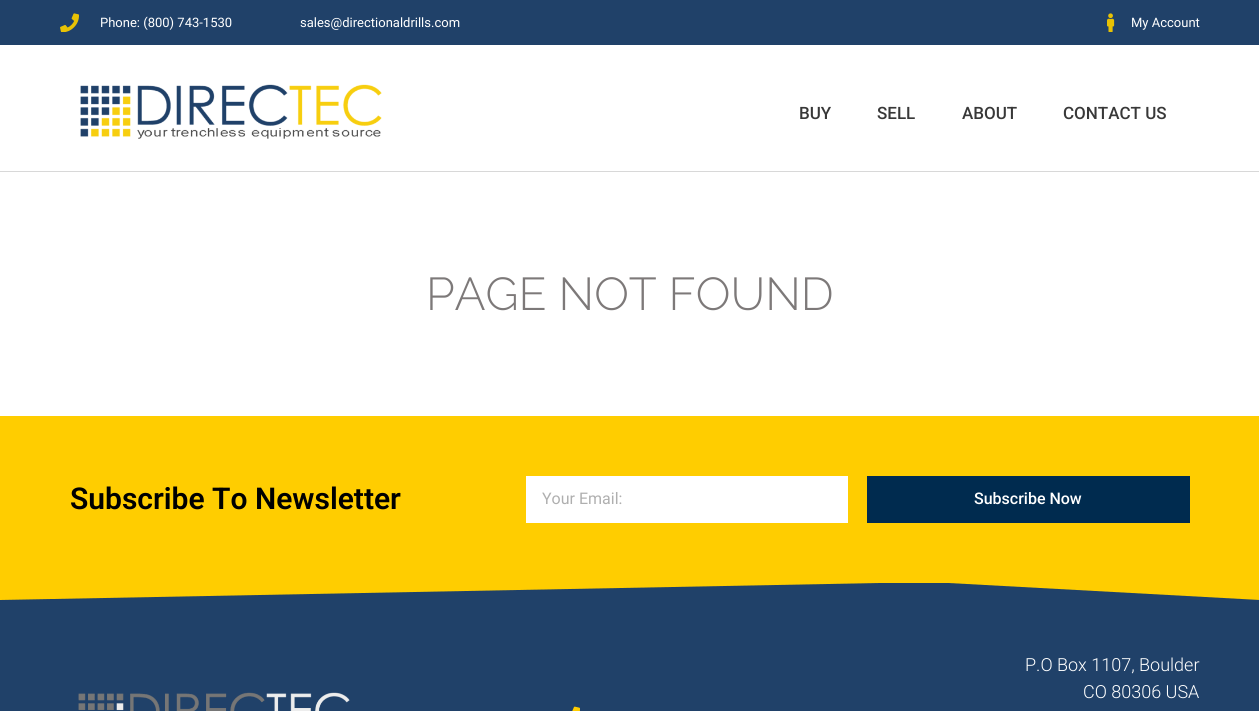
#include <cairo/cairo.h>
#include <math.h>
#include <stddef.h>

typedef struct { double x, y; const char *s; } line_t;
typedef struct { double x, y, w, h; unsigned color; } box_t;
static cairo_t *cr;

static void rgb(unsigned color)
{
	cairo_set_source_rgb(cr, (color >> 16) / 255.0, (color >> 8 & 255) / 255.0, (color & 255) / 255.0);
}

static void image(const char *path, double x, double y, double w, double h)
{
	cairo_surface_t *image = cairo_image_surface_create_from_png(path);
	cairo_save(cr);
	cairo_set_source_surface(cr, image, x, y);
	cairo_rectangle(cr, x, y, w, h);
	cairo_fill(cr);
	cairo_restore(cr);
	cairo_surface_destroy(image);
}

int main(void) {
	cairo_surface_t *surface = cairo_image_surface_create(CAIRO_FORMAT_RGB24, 1259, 711);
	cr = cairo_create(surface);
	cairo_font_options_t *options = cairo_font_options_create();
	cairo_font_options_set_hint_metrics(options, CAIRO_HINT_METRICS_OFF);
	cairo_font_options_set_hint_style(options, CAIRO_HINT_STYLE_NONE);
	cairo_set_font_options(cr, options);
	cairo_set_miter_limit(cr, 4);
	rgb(0xffffff);
	cairo_paint(cr);
	rgb(0x204169);
	cairo_rectangle(cr, 0, 0, 1259, 45);
	cairo_fill(cr);
	image("img/1.png", 60, 13, 19, 19);
	image("img/2.png", 1107, 13, 8, 19);
	rgb(0xd8d8d8);
	cairo_rectangle(cr, 0, 171, 1259, 1);
	cairo_fill(cr);
	image("img/3.png", 80, 84, 302, 55);
	{
		static const box_t items[] = {
			{0, 416, 1259, 167, 0xffcd00},
			{526, 476, 322, 47, 0xffffff},
			{867, 476, 323, 47, 0x002b4f},
			{0, 583, 1259, 128, 0x204169},
		};
		for (size_t i = 0; i < sizeof items / sizeof *items; i++) {
			rgb(items[i].color);
			cairo_rectangle(cr, items[i].x, items[i].y, items[i].w, items[i].h);
			cairo_fill(cr);
		}
	}
	rgb(0xffcd00);
	cairo_new_path(cr);
	cairo_move_to(cr, 930, 582);
	cairo_line_to(cr, 0, 600);
	cairo_line_to(cr, 0, 582);
	cairo_line_to(cr, 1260, 582);
	cairo_line_to(cr, 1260, 600);
	cairo_close_path(cr);
	cairo_fill(cr);
	image("img/4.png", 78, 692, 272, 19);
	image("img/5.png", 572, 706, 8, 5);
	cairo_select_font_face(cr, "Roboto", CAIRO_FONT_SLANT_NORMAL, CAIRO_FONT_WEIGHT_NORMAL);
	cairo_set_font_size(cr, 13);
	rgb(0xffffff);
	{
		static const line_t items[] = {
			{100, 27, "Phone: (800) 743-1530"},
			{300, 27, "sales@directionaldrills.com"},
			{1131, 27, "My Account"},
		};
		for (size_t i = 0; i < sizeof items / sizeof *items; i++) {
			cairo_move_to(cr, items[i].x, items[i].y);
			cairo_show_text(cr, items[i].s);
		}
	}
	cairo_select_font_face(cr, "Roboto Medium", CAIRO_FONT_SLANT_NORMAL, CAIRO_FONT_WEIGHT_NORMAL);
	cairo_set_font_size(cr, 17);
	rgb(0x383838);
	{
		static const line_t items[] = {
			{799, 119, "BUY"},
			{877, 119, "SELL"},
			{962, 119, "ABOUT"},
			{1063, 119, "CONTACT US"},
		};
		for (size_t i = 0; i < sizeof items / sizeof *items; i++) {
			cairo_move_to(cr, items[i].x, items[i].y);
			cairo_show_text(cr, items[i].s);
		}
	}
	cairo_select_font_face(cr, "Raleway Light", CAIRO_FONT_SLANT_NORMAL, CAIRO_FONT_WEIGHT_NORMAL);
	cairo_set_font_size(cr, 46);
	rgb(0x7d7979);
	cairo_move_to(cr, 426, 310);
	cairo_show_text(cr, "PAGE NOT FOUND");
	cairo_select_font_face(cr, "Roboto SemiBold", CAIRO_FONT_SLANT_NORMAL, CAIRO_FONT_WEIGHT_NORMAL);
	cairo_set_font_size(cr, 30);
	rgb(0x000000);
	cairo_move_to(cr, 70, 509);
	cairo_show_text(cr, "Subscribe To Newsletter");
	cairo_select_font_face(cr, "Roboto", CAIRO_FONT_SLANT_NORMAL, CAIRO_FONT_WEIGHT_NORMAL);
	cairo_set_font_size(cr, 16);
	rgb(0xafafaf);
	cairo_move_to(cr, 542, 504);
	cairo_show_text(cr, "Your Email:");
	cairo_select_font_face(cr, "Roboto Medium", CAIRO_FONT_SLANT_NORMAL, CAIRO_FONT_WEIGHT_NORMAL);
	rgb(0xffffff);
	cairo_move_to(cr, 974, 504);
	cairo_show_text(cr, "Subscribe Now");
	cairo_select_font_face(cr, "Roboto Light", CAIRO_FONT_SLANT_NORMAL, CAIRO_FONT_WEIGHT_NORMAL);
	cairo_set_font_size(cr, 18);
	cairo_move_to(cr, 1025, 671);
	cairo_show_text(cr, "P.O Box 1107, Boulder");
	cairo_move_to(cr, 1083, 698);
	cairo_show_text(cr, "CO 80306 USA");
	cairo_surface_write_to_png(surface, "page.png");
	cairo_font_options_destroy(options);
	cairo_destroy(cr);
	cairo_surface_destroy(surface);
	return 0;
}
